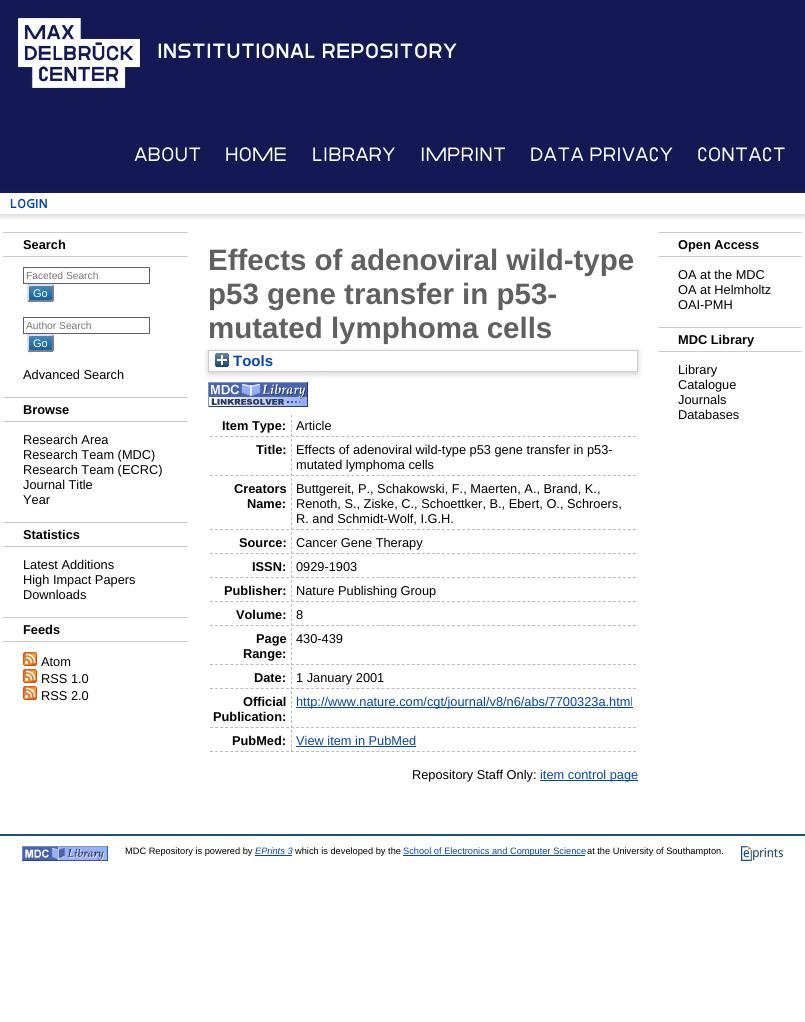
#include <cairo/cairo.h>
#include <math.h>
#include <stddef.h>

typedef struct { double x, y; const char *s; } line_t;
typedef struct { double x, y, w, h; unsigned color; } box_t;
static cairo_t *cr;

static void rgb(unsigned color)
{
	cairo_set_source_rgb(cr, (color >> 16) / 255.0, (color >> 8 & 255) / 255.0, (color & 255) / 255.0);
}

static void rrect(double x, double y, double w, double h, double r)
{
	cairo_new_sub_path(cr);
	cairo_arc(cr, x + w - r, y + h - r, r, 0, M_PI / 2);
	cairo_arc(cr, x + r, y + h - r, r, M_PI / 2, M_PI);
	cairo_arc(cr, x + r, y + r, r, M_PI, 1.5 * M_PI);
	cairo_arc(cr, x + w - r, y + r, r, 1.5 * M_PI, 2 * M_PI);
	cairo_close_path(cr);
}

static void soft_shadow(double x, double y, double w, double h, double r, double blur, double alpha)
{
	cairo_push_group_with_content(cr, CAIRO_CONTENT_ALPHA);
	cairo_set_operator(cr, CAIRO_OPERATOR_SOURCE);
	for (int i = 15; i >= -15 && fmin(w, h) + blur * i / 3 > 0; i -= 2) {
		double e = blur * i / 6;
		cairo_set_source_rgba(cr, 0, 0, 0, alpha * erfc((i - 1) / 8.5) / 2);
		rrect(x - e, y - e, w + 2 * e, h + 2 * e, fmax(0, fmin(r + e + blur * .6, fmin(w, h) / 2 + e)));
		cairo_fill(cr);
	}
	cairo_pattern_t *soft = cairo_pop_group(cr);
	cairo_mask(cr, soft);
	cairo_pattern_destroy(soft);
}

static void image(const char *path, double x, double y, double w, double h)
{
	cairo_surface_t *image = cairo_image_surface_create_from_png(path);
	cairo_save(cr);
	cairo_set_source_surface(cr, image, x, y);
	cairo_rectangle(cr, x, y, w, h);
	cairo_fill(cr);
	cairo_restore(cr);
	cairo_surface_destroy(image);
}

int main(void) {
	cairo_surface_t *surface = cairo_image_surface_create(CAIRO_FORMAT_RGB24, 805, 1022);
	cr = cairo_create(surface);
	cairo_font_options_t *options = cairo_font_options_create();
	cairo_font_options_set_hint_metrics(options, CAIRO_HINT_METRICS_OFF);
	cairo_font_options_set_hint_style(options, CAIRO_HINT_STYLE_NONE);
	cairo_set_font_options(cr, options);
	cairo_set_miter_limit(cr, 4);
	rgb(0xffffff);
	cairo_paint(cr);
	rgb(0x141955);
	cairo_rectangle(cr, 0, 0, 805, 193);
	cairo_fill(cr);
	image("img/1.png", 18, 18, 122, 70);
	rgb(0x646464);
	soft_shadow(0, 195, 805, 21, 0, 3, 0.3);
	{
		static const box_t items[] = {
			{0, 193, 805, 21, 0xffffff},
			{3, 232, 185, 1, 0xcccccc},
			{3, 256, 185, 1, 0xcccccc},
		};
		for (size_t i = 0; i < sizeof items / sizeof *items; i++) {
			rgb(items[i].color);
			cairo_rectangle(cr, items[i].x, items[i].y, items[i].w, items[i].h);
			cairo_fill(cr);
		}
	}
	cairo_rectangle(cr, 23.5, 267.5, 126, 16);
	rgb(0x606060);
	cairo_set_line_width(cr, 1);
	cairo_stroke(cr);
	rgb(0x005899);
	rrect(27, 284, 27, 18, 3);
	cairo_fill(cr);
	image("img/2.png", 27, 284, 27, 18);
	cairo_new_path(cr);
	cairo_move_to(cr, 52.5, 285.5);
	cairo_curve_to(cr, 53.5, 287, 53, 291.5, 53, 293);
	cairo_curve_to(cr, 53, 300.5, 54.5, 301, 47.5, 301);
	cairo_line_to(cr, 33.5, 301);
	cairo_curve_to(cr, 32.5, 301, 29.5, 301.5, 28.5, 300.5);
	rgb(0x808080);
	cairo_set_line_width(cr, 2);
	cairo_stroke(cr);
	cairo_new_path(cr);
	cairo_move_to(cr, 28.5, 300.5);
	cairo_curve_to(cr, 27.5, 299, 28, 294.5, 28, 293);
	cairo_curve_to(cr, 28, 285.5, 26.5, 285, 33.5, 285);
	cairo_line_to(cr, 47.5, 285);
	cairo_curve_to(cr, 48.5, 285, 51.5, 284.5, 52.5, 285.5);
	rgb(0xe0e0ff);
	cairo_stroke(cr);
	cairo_rectangle(cr, 23.5, 317.5, 126, 16);
	rgb(0x606060);
	cairo_set_line_width(cr, 1);
	cairo_stroke(cr);
	rgb(0x005899);
	rrect(27, 334, 27, 18, 3);
	cairo_fill(cr);
	image("img/2.png", 27, 334, 27, 18);
	cairo_new_path(cr);
	cairo_move_to(cr, 52.5, 335.5);
	cairo_curve_to(cr, 53.5, 337, 53, 341.5, 53, 343);
	cairo_curve_to(cr, 53, 350.5, 54.5, 351, 47.5, 351);
	cairo_line_to(cr, 33.5, 351);
	cairo_curve_to(cr, 32.5, 351, 29.5, 351.5, 28.5, 350.5);
	rgb(0x808080);
	cairo_set_line_width(cr, 2);
	cairo_stroke(cr);
	cairo_new_path(cr);
	cairo_move_to(cr, 28.5, 350.5);
	cairo_curve_to(cr, 27.5, 349, 28, 344.5, 28, 343);
	cairo_curve_to(cr, 28, 335.5, 26.5, 335, 33.5, 335);
	cairo_line_to(cr, 47.5, 335);
	cairo_curve_to(cr, 48.5, 335, 51.5, 334.5, 52.5, 335.5);
	rgb(0xe0e0ff);
	cairo_stroke(cr);
	{
		static const box_t items[] = {
			{3, 397, 185, 1, 0xcccccc},
			{3, 421, 185, 1, 0xcccccc},
			{3, 522, 185, 1, 0xcccccc},
			{3, 546, 185, 1, 0xcccccc},
			{3, 617, 185, 1, 0xcccccc},
			{3, 641, 185, 1, 0xcccccc},
		};
		for (size_t i = 0; i < sizeof items / sizeof *items; i++) {
			rgb(items[i].color);
			cairo_rectangle(cr, items[i].x, items[i].y, items[i].w, items[i].h);
			cairo_fill(cr);
		}
	}
	image("img/3.png", 23, 652, 14, 14);
	image("img/3.png", 23, 669, 14, 14);
	image("img/3.png", 23, 686, 14, 14);
	cairo_save(cr);
	cairo_set_fill_rule(cr, CAIRO_FILL_RULE_EVEN_ODD);
	cairo_new_path(cr);
	cairo_move_to(cr, 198, 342);
	cairo_line_to(cr, 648, 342);
	cairo_line_to(cr, 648, 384);
	cairo_line_to(cr, 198, 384);
	cairo_close_path(cr);
	cairo_move_to(cr, 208, 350);
	cairo_line_to(cr, 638, 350);
	cairo_line_to(cr, 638, 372);
	cairo_line_to(cr, 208, 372);
	cairo_close_path(cr);
	cairo_clip(cr);
	rgb(0x646464);
	soft_shadow(208, 352, 430, 22, 0, 3, 0.3);
	cairo_restore(cr);
	cairo_rectangle(cr, 208.5, 350.5, 429, 21);
	cairo_set_line_width(cr, 1);
	cairo_stroke(cr);
	image("img/4.png", 215, 353, 14, 14);
	image("img/5.png", 208, 382, 100, 25);
	cairo_new_path(cr);
	cairo_move_to(cr, 210, 436.5);
	cairo_line_to(cr, 289, 436.5);
	rgb(0xbbbbbb);
	cairo_set_dash(cr, (double[]){3, 2.07}, 2, 0);
	cairo_stroke(cr);
	cairo_new_path(cr);
	cairo_move_to(cr, 291, 436.5);
	cairo_line_to(cr, 636, 436.5);
	cairo_set_dash(cr, (double[]){3, 2.03}, 2, 0);
	cairo_stroke(cr);
	cairo_new_path(cr);
	cairo_move_to(cr, 291.5, 415);
	cairo_line_to(cr, 291.5, 437);
	cairo_set_dash(cr, (double[]){3, 1.75}, 2, 0);
	cairo_stroke(cr);
	cairo_new_path(cr);
	cairo_move_to(cr, 210, 475.5);
	cairo_line_to(cr, 289, 475.5);
	cairo_set_dash(cr, (double[]){3, 2.07}, 2, 0);
	cairo_stroke(cr);
	cairo_new_path(cr);
	cairo_move_to(cr, 291, 475.5);
	cairo_line_to(cr, 636, 475.5);
	cairo_set_dash(cr, (double[]){3, 2.03}, 2, 0);
	cairo_stroke(cr);
	cairo_new_path(cr);
	cairo_move_to(cr, 291.5, 439);
	cairo_line_to(cr, 291.5, 476);
	cairo_set_dash(cr, (double[]){3, 1.86}, 2, 0);
	cairo_stroke(cr);
	cairo_new_path(cr);
	cairo_move_to(cr, 210, 529.5);
	cairo_line_to(cr, 289, 529.5);
	cairo_set_dash(cr, (double[]){3, 2.07}, 2, 0);
	cairo_stroke(cr);
	cairo_new_path(cr);
	cairo_move_to(cr, 291, 529.5);
	cairo_line_to(cr, 636, 529.5);
	cairo_set_dash(cr, (double[]){3, 2.03}, 2, 0);
	cairo_stroke(cr);
	cairo_new_path(cr);
	cairo_move_to(cr, 291.5, 478);
	cairo_line_to(cr, 291.5, 530);
	cairo_set_dash(cr, (double[]){3, 1.9}, 2, 0);
	cairo_stroke(cr);
	cairo_new_path(cr);
	cairo_move_to(cr, 210, 553.5);
	cairo_line_to(cr, 289, 553.5);
	cairo_set_dash(cr, (double[]){3, 2.07}, 2, 0);
	cairo_stroke(cr);
	cairo_new_path(cr);
	cairo_move_to(cr, 291, 553.5);
	cairo_line_to(cr, 636, 553.5);
	cairo_set_dash(cr, (double[]){3, 2.03}, 2, 0);
	cairo_stroke(cr);
	cairo_new_path(cr);
	cairo_move_to(cr, 291.5, 532);
	cairo_line_to(cr, 291.5, 554);
	cairo_set_dash(cr, (double[]){3, 1.75}, 2, 0);
	cairo_stroke(cr);
	cairo_new_path(cr);
	cairo_move_to(cr, 210, 577.5);
	cairo_line_to(cr, 289, 577.5);
	cairo_set_dash(cr, (double[]){3, 2.07}, 2, 0);
	cairo_stroke(cr);
	cairo_new_path(cr);
	cairo_move_to(cr, 291, 577.5);
	cairo_line_to(cr, 636, 577.5);
	cairo_set_dash(cr, (double[]){3, 2.03}, 2, 0);
	cairo_stroke(cr);
	cairo_new_path(cr);
	cairo_move_to(cr, 291.5, 556);
	cairo_line_to(cr, 291.5, 578);
	cairo_set_dash(cr, (double[]){3, 1.75}, 2, 0);
	cairo_stroke(cr);
	cairo_new_path(cr);
	cairo_move_to(cr, 210, 601.5);
	cairo_line_to(cr, 289, 601.5);
	cairo_set_dash(cr, (double[]){3, 2.07}, 2, 0);
	cairo_stroke(cr);
	cairo_new_path(cr);
	cairo_move_to(cr, 291, 601.5);
	cairo_line_to(cr, 636, 601.5);
	cairo_set_dash(cr, (double[]){3, 2.03}, 2, 0);
	cairo_stroke(cr);
	cairo_new_path(cr);
	cairo_move_to(cr, 291.5, 580);
	cairo_line_to(cr, 291.5, 602);
	cairo_set_dash(cr, (double[]){3, 1.75}, 2, 0);
	cairo_stroke(cr);
	cairo_new_path(cr);
	cairo_move_to(cr, 210, 625.5);
	cairo_line_to(cr, 289, 625.5);
	cairo_set_dash(cr, (double[]){3, 2.07}, 2, 0);
	cairo_stroke(cr);
	cairo_new_path(cr);
	cairo_move_to(cr, 291, 625.5);
	cairo_line_to(cr, 636, 625.5);
	cairo_set_dash(cr, (double[]){3, 2.03}, 2, 0);
	cairo_stroke(cr);
	cairo_new_path(cr);
	cairo_move_to(cr, 291.5, 604);
	cairo_line_to(cr, 291.5, 626);
	cairo_set_dash(cr, (double[]){3, 1.75}, 2, 0);
	cairo_stroke(cr);
	cairo_new_path(cr);
	cairo_move_to(cr, 210, 664.5);
	cairo_line_to(cr, 289, 664.5);
	cairo_set_dash(cr, (double[]){3, 2.07}, 2, 0);
	cairo_stroke(cr);
	cairo_new_path(cr);
	cairo_move_to(cr, 291, 664.5);
	cairo_line_to(cr, 636, 664.5);
	cairo_set_dash(cr, (double[]){3, 2.03}, 2, 0);
	cairo_stroke(cr);
	cairo_new_path(cr);
	cairo_move_to(cr, 291.5, 628);
	cairo_line_to(cr, 291.5, 665);
	cairo_set_dash(cr, (double[]){3, 1.86}, 2, 0);
	cairo_stroke(cr);
	cairo_new_path(cr);
	cairo_move_to(cr, 210, 688.5);
	cairo_line_to(cr, 289, 688.5);
	cairo_set_dash(cr, (double[]){3, 2.07}, 2, 0);
	cairo_stroke(cr);
	cairo_new_path(cr);
	cairo_move_to(cr, 291, 688.5);
	cairo_line_to(cr, 636, 688.5);
	cairo_set_dash(cr, (double[]){3, 2.03}, 2, 0);
	cairo_stroke(cr);
	cairo_new_path(cr);
	cairo_move_to(cr, 291.5, 667);
	cairo_line_to(cr, 291.5, 689);
	cairo_set_dash(cr, (double[]){3, 1.75}, 2, 0);
	cairo_stroke(cr);
	cairo_new_path(cr);
	cairo_move_to(cr, 210, 727.5);
	cairo_line_to(cr, 289, 727.5);
	cairo_set_dash(cr, (double[]){3, 2.07}, 2, 0);
	cairo_stroke(cr);
	cairo_new_path(cr);
	cairo_move_to(cr, 291, 727.5);
	cairo_line_to(cr, 636, 727.5);
	cairo_set_dash(cr, (double[]){3, 2.03}, 2, 0);
	cairo_stroke(cr);
	cairo_new_path(cr);
	cairo_move_to(cr, 291.5, 691);
	cairo_line_to(cr, 291.5, 728);
	cairo_set_dash(cr, (double[]){3, 1.86}, 2, 0);
	cairo_stroke(cr);
	rgb(0x0645ad);
	cairo_rectangle(cr, 296, 707, 337, 1);
	cairo_fill(cr);
	cairo_new_path(cr);
	cairo_move_to(cr, 210, 751.5);
	cairo_line_to(cr, 289, 751.5);
	rgb(0xbbbbbb);
	cairo_set_dash(cr, (double[]){3, 2.07}, 2, 0);
	cairo_stroke(cr);
	cairo_new_path(cr);
	cairo_move_to(cr, 291, 751.5);
	cairo_line_to(cr, 636, 751.5);
	cairo_set_dash(cr, (double[]){3, 2.03}, 2, 0);
	cairo_stroke(cr);
	cairo_new_path(cr);
	cairo_move_to(cr, 291.5, 730);
	cairo_line_to(cr, 291.5, 752);
	cairo_set_dash(cr, (double[]){3, 1.75}, 2, 0);
	cairo_stroke(cr);
	{
		static const box_t items[] = {
			{296, 746, 120, 1, 0x0645ad},
			{540, 780, 98, 1, 0x0645ad},
			{658, 232, 144, 1, 0xcccccc},
			{658, 256, 144, 1, 0xcccccc},
			{658, 327, 144, 1, 0xcccccc},
			{658, 351, 144, 1, 0xcccccc},
			{0, 834, 805, 2, 0x204f76},
		};
		for (size_t i = 0; i < sizeof items / sizeof *items; i++) {
			rgb(items[i].color);
			cairo_rectangle(cr, items[i].x, items[i].y, items[i].w, items[i].h);
			cairo_fill(cr);
		}
	}
	image("img/6.png", 22, 846, 86, 15);
	rgb(0x0645ad);
	cairo_rectangle(cr, 255, 855, 37, 1);
	cairo_fill(cr);
	cairo_rectangle(cr, 403, 855, 182, 1);
	cairo_fill(cr);
	image("img/7.png", 741, 846, 42, 15);
	cairo_select_font_face(cr, "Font", CAIRO_FONT_SLANT_NORMAL, CAIRO_FONT_WEIGHT_BOLD);
	cairo_set_font_size(cr, 20.6);
	rgb(0xffffff);
	cairo_move_to(cr, 157, 58);
	cairo_show_text(cr, "Institutional Repository");
	cairo_select_font_face(cr, "Font Medium", CAIRO_FONT_SLANT_NORMAL, CAIRO_FONT_WEIGHT_NORMAL);
	cairo_set_font_size(cr, 19.25);
	{
		static const line_t items[] = {
			{134, 161, "About"},
			{225, 161, "Home"},
			{312, 161, "Library"},
			{420, 161, "Imprint"},
			{530, 161, "Data Privacy"},
			{697, 161, "Contact"},
		};
		for (size_t i = 0; i < sizeof items / sizeof *items; i++) {
			cairo_move_to(cr, items[i].x, items[i].y);
			cairo_show_text(cr, items[i].s);
		}
	}
	cairo_select_font_face(cr, "Font", CAIRO_FONT_SLANT_NORMAL, CAIRO_FONT_WEIGHT_BOLD);
	cairo_set_font_size(cr, 12.8);
	rgb(0x0645ad);
	cairo_move_to(cr, 10, 208);
	cairo_show_text(cr, "Login");
	cairo_select_font_face(cr, "Liberation Sans", CAIRO_FONT_SLANT_NORMAL, CAIRO_FONT_WEIGHT_BOLD);
	rgb(0x000000);
	cairo_move_to(cr, 23, 249);
	cairo_show_text(cr, "Search");
	cairo_select_font_face(cr, "Liberation Sans", CAIRO_FONT_SLANT_NORMAL, CAIRO_FONT_WEIGHT_NORMAL);
	cairo_set_font_size(cr, 10.25);
	rgb(0x757575);
	cairo_move_to(cr, 26, 279);
	cairo_show_text(cr, "Faceted Search");
	cairo_set_font_size(cr, 11);
	rgb(0xffffff);
	cairo_move_to(cr, 33, 297);
	cairo_show_text(cr, "Go");
	cairo_set_font_size(cr, 10.25);
	rgb(0x757575);
	cairo_move_to(cr, 26, 329);
	cairo_show_text(cr, "Author Search");
	cairo_set_font_size(cr, 11);
	rgb(0xffffff);
	cairo_move_to(cr, 33, 347);
	cairo_show_text(cr, "Go");
	cairo_set_font_size(cr, 12.8);
	rgb(0x000000);
	cairo_move_to(cr, 23, 379);
	cairo_show_text(cr, "Advanced Search");
	cairo_select_font_face(cr, "Liberation Sans", CAIRO_FONT_SLANT_NORMAL, CAIRO_FONT_WEIGHT_BOLD);
	cairo_move_to(cr, 23, 414);
	cairo_show_text(cr, "Browse");
	cairo_select_font_face(cr, "Liberation Sans", CAIRO_FONT_SLANT_NORMAL, CAIRO_FONT_WEIGHT_NORMAL);
	{
		static const line_t items[] = {
			{23, 444, "Research Area"},
			{23, 459, "Research Team (MDC)"},
			{23, 474, "Research Team (ECRC)"},
			{23, 489, "Journal Title"},
			{23, 504, "Year"},
		};
		for (size_t i = 0; i < sizeof items / sizeof *items; i++) {
			cairo_move_to(cr, items[i].x, items[i].y);
			cairo_show_text(cr, items[i].s);
		}
	}
	cairo_select_font_face(cr, "Liberation Sans", CAIRO_FONT_SLANT_NORMAL, CAIRO_FONT_WEIGHT_BOLD);
	cairo_move_to(cr, 23, 539);
	cairo_show_text(cr, "Statistics");
	cairo_select_font_face(cr, "Liberation Sans", CAIRO_FONT_SLANT_NORMAL, CAIRO_FONT_WEIGHT_NORMAL);
	{
		static const line_t items[] = {
			{23, 569, "Latest Additions"},
			{23, 584, "High Impact Papers"},
			{23, 599, "Downloads"},
		};
		for (size_t i = 0; i < sizeof items / sizeof *items; i++) {
			cairo_move_to(cr, items[i].x, items[i].y);
			cairo_show_text(cr, items[i].s);
		}
	}
	cairo_select_font_face(cr, "Liberation Sans", CAIRO_FONT_SLANT_NORMAL, CAIRO_FONT_WEIGHT_BOLD);
	cairo_move_to(cr, 23, 634);
	cairo_show_text(cr, "Feeds");
	cairo_select_font_face(cr, "Liberation Sans", CAIRO_FONT_SLANT_NORMAL, CAIRO_FONT_WEIGHT_NORMAL);
	{
		static const line_t items[] = {
			{41, 666, "Atom"},
			{41, 683, "RSS 1.0"},
			{41, 700, "RSS 2.0"},
		};
		for (size_t i = 0; i < sizeof items / sizeof *items; i++) {
			cairo_move_to(cr, items[i].x, items[i].y);
			cairo_show_text(cr, items[i].s);
		}
	}
	cairo_select_font_face(cr, "Liberation Sans", CAIRO_FONT_SLANT_NORMAL, CAIRO_FONT_WEIGHT_BOLD);
	cairo_set_font_size(cr, 29.5);
	rgb(0x606060);
	{
		static const line_t items[] = {
			{208, 270, "Effects of adenoviral wild-type"},
			{208, 304, "p53 gene transfer in p53-"},
			{208, 338, "mutated lymphoma cells"},
		};
		for (size_t i = 0; i < sizeof items / sizeof *items; i++) {
			cairo_move_to(cr, items[i].x, items[i].y);
			cairo_show_text(cr, items[i].s);
		}
	}
	cairo_set_font_size(cr, 15);
	rgb(0x0645ad);
	cairo_move_to(cr, 233, 366);
	cairo_show_text(cr, "Tools");
	cairo_set_font_size(cr, 12.8);
	rgb(0x000000);
	cairo_move_to(cr, 222, 430);
	cairo_show_text(cr, "Item Type:");
	cairo_select_font_face(cr, "Liberation Sans", CAIRO_FONT_SLANT_NORMAL, CAIRO_FONT_WEIGHT_NORMAL);
	cairo_move_to(cr, 296, 430);
	cairo_show_text(cr, "Article");
	cairo_select_font_face(cr, "Liberation Sans", CAIRO_FONT_SLANT_NORMAL, CAIRO_FONT_WEIGHT_BOLD);
	cairo_move_to(cr, 256, 454);
	cairo_show_text(cr, "Title:");
	cairo_select_font_face(cr, "Liberation Sans", CAIRO_FONT_SLANT_NORMAL, CAIRO_FONT_WEIGHT_NORMAL);
	cairo_move_to(cr, 296, 454);
	cairo_show_text(cr, "Effects of adenoviral wild-type p53 gene transfer in p53-");
	cairo_move_to(cr, 296, 469);
	cairo_show_text(cr, "mutated lymphoma cells");
	cairo_select_font_face(cr, "Liberation Sans", CAIRO_FONT_SLANT_NORMAL, CAIRO_FONT_WEIGHT_BOLD);
	cairo_move_to(cr, 234, 493);
	cairo_show_text(cr, "Creators");
	cairo_move_to(cr, 247, 508);
	cairo_show_text(cr, "Name:");
	cairo_select_font_face(cr, "Liberation Sans", CAIRO_FONT_SLANT_NORMAL, CAIRO_FONT_WEIGHT_NORMAL);
	{
		static const line_t items[] = {
			{296, 493, "Buttgereit, P., Schakowski, F., Maerten, A., Brand, K.,"},
			{296, 508, "Renoth, S., Ziske, C., Schoettker, B., Ebert, O., Schroers,"},
			{296, 523, "R. and Schmidt-Wolf, I.G.H."},
		};
		for (size_t i = 0; i < sizeof items / sizeof *items; i++) {
			cairo_move_to(cr, items[i].x, items[i].y);
			cairo_show_text(cr, items[i].s);
		}
	}
	cairo_select_font_face(cr, "Liberation Sans", CAIRO_FONT_SLANT_NORMAL, CAIRO_FONT_WEIGHT_BOLD);
	cairo_move_to(cr, 239, 547);
	cairo_show_text(cr, "Source:");
	cairo_select_font_face(cr, "Liberation Sans", CAIRO_FONT_SLANT_NORMAL, CAIRO_FONT_WEIGHT_NORMAL);
	cairo_move_to(cr, 296, 547);
	cairo_show_text(cr, "Cancer Gene Therapy");
	cairo_select_font_face(cr, "Liberation Sans", CAIRO_FONT_SLANT_NORMAL, CAIRO_FONT_WEIGHT_BOLD);
	cairo_move_to(cr, 252, 571);
	cairo_show_text(cr, "ISSN:");
	cairo_select_font_face(cr, "Liberation Sans", CAIRO_FONT_SLANT_NORMAL, CAIRO_FONT_WEIGHT_NORMAL);
	cairo_move_to(cr, 296, 571);
	cairo_show_text(cr, "0929-1903");
	cairo_select_font_face(cr, "Liberation Sans", CAIRO_FONT_SLANT_NORMAL, CAIRO_FONT_WEIGHT_BOLD);
	cairo_move_to(cr, 224, 595);
	cairo_show_text(cr, "Publisher:");
	cairo_select_font_face(cr, "Liberation Sans", CAIRO_FONT_SLANT_NORMAL, CAIRO_FONT_WEIGHT_NORMAL);
	cairo_move_to(cr, 296, 595);
	cairo_show_text(cr, "Nature Publishing Group");
	cairo_select_font_face(cr, "Liberation Sans", CAIRO_FONT_SLANT_NORMAL, CAIRO_FONT_WEIGHT_BOLD);
	cairo_move_to(cr, 236, 619);
	cairo_show_text(cr, "Volume:");
	cairo_select_font_face(cr, "Liberation Sans", CAIRO_FONT_SLANT_NORMAL, CAIRO_FONT_WEIGHT_NORMAL);
	cairo_move_to(cr, 296, 619);
	cairo_show_text(cr, "8");
	cairo_select_font_face(cr, "Liberation Sans", CAIRO_FONT_SLANT_NORMAL, CAIRO_FONT_WEIGHT_BOLD);
	cairo_move_to(cr, 256, 643);
	cairo_show_text(cr, "Page");
	cairo_move_to(cr, 243, 658);
	cairo_show_text(cr, "Range:");
	cairo_select_font_face(cr, "Liberation Sans", CAIRO_FONT_SLANT_NORMAL, CAIRO_FONT_WEIGHT_NORMAL);
	cairo_move_to(cr, 296, 643);
	cairo_show_text(cr, "430-439");
	cairo_select_font_face(cr, "Liberation Sans", CAIRO_FONT_SLANT_NORMAL, CAIRO_FONT_WEIGHT_BOLD);
	cairo_move_to(cr, 254, 682);
	cairo_show_text(cr, "Date:");
	cairo_select_font_face(cr, "Liberation Sans", CAIRO_FONT_SLANT_NORMAL, CAIRO_FONT_WEIGHT_NORMAL);
	cairo_move_to(cr, 296, 682);
	cairo_show_text(cr, "1 January 2001");
	cairo_select_font_face(cr, "Liberation Sans", CAIRO_FONT_SLANT_NORMAL, CAIRO_FONT_WEIGHT_BOLD);
	cairo_move_to(cr, 243, 706);
	cairo_show_text(cr, "Official");
	cairo_move_to(cr, 213, 721);
	cairo_show_text(cr, "Publication:");
	cairo_select_font_face(cr, "Liberation Sans", CAIRO_FONT_SLANT_NORMAL, CAIRO_FONT_WEIGHT_NORMAL);
	rgb(0x0645ad);
	cairo_move_to(cr, 296, 706);
	cairo_show_text(cr, "http://www.nature.com/cgt/journal/v8/n6/abs/7700323a.html");
	cairo_select_font_face(cr, "Liberation Sans", CAIRO_FONT_SLANT_NORMAL, CAIRO_FONT_WEIGHT_BOLD);
	rgb(0x000000);
	cairo_move_to(cr, 232, 745);
	cairo_show_text(cr, "PubMed:");
	cairo_select_font_face(cr, "Liberation Sans", CAIRO_FONT_SLANT_NORMAL, CAIRO_FONT_WEIGHT_NORMAL);
	rgb(0x0645ad);
	cairo_move_to(cr, 296, 745);
	cairo_show_text(cr, "View item in PubMed");
	rgb(0x000000);
	cairo_move_to(cr, 412, 779);
	cairo_show_text(cr, "Repository Staff Only:");
	rgb(0x0645ad);
	cairo_move_to(cr, 540, 779);
	cairo_show_text(cr, "item control page");
	cairo_select_font_face(cr, "Liberation Sans", CAIRO_FONT_SLANT_NORMAL, CAIRO_FONT_WEIGHT_BOLD);
	rgb(0x000000);
	cairo_move_to(cr, 678, 249);
	cairo_show_text(cr, "Open Access");
	cairo_select_font_face(cr, "Liberation Sans", CAIRO_FONT_SLANT_NORMAL, CAIRO_FONT_WEIGHT_NORMAL);
	{
		static const line_t items[] = {
			{678, 279, "OA at the MDC"},
			{678, 294, "OA at Helmholtz"},
			{678, 309, "OAI-PMH"},
		};
		for (size_t i = 0; i < sizeof items / sizeof *items; i++) {
			cairo_move_to(cr, items[i].x, items[i].y);
			cairo_show_text(cr, items[i].s);
		}
	}
	cairo_select_font_face(cr, "Liberation Sans", CAIRO_FONT_SLANT_NORMAL, CAIRO_FONT_WEIGHT_BOLD);
	cairo_move_to(cr, 678, 344);
	cairo_show_text(cr, "MDC Library");
	cairo_select_font_face(cr, "Liberation Sans", CAIRO_FONT_SLANT_NORMAL, CAIRO_FONT_WEIGHT_NORMAL);
	{
		static const line_t items[] = {
			{678, 374, "Library"},
			{678, 389, "Catalogue"},
			{678, 404, "Journals"},
			{678, 419, "Databases"},
		};
		for (size_t i = 0; i < sizeof items / sizeof *items; i++) {
			cairo_move_to(cr, items[i].x, items[i].y);
			cairo_show_text(cr, items[i].s);
		}
	}
	cairo_set_font_size(cr, 9.25);
	cairo_move_to(cr, 125, 854);
	cairo_show_text(cr, "MDC Repository is powered by");
	cairo_select_font_face(cr, "Liberation Sans", CAIRO_FONT_SLANT_ITALIC, CAIRO_FONT_WEIGHT_NORMAL);
	rgb(0x0645ad);
	cairo_move_to(cr, 255, 854);
	cairo_show_text(cr, "EPrints 3");
	cairo_select_font_face(cr, "Liberation Sans", CAIRO_FONT_SLANT_NORMAL, CAIRO_FONT_WEIGHT_NORMAL);
	rgb(0x000000);
	cairo_move_to(cr, 295, 854);
	cairo_show_text(cr, "which is developed by the");
	rgb(0x0645ad);
	cairo_move_to(cr, 403, 854);
	cairo_show_text(cr, "School of Electronics and Computer Science");
	rgb(0x000000);
	cairo_move_to(cr, 587, 854);
	cairo_show_text(cr, "at the University of Southampton.");
	cairo_surface_write_to_png(surface, "page.png");
	cairo_font_options_destroy(options);
	cairo_destroy(cr);
	cairo_surface_destroy(surface);
	return 0;
}
